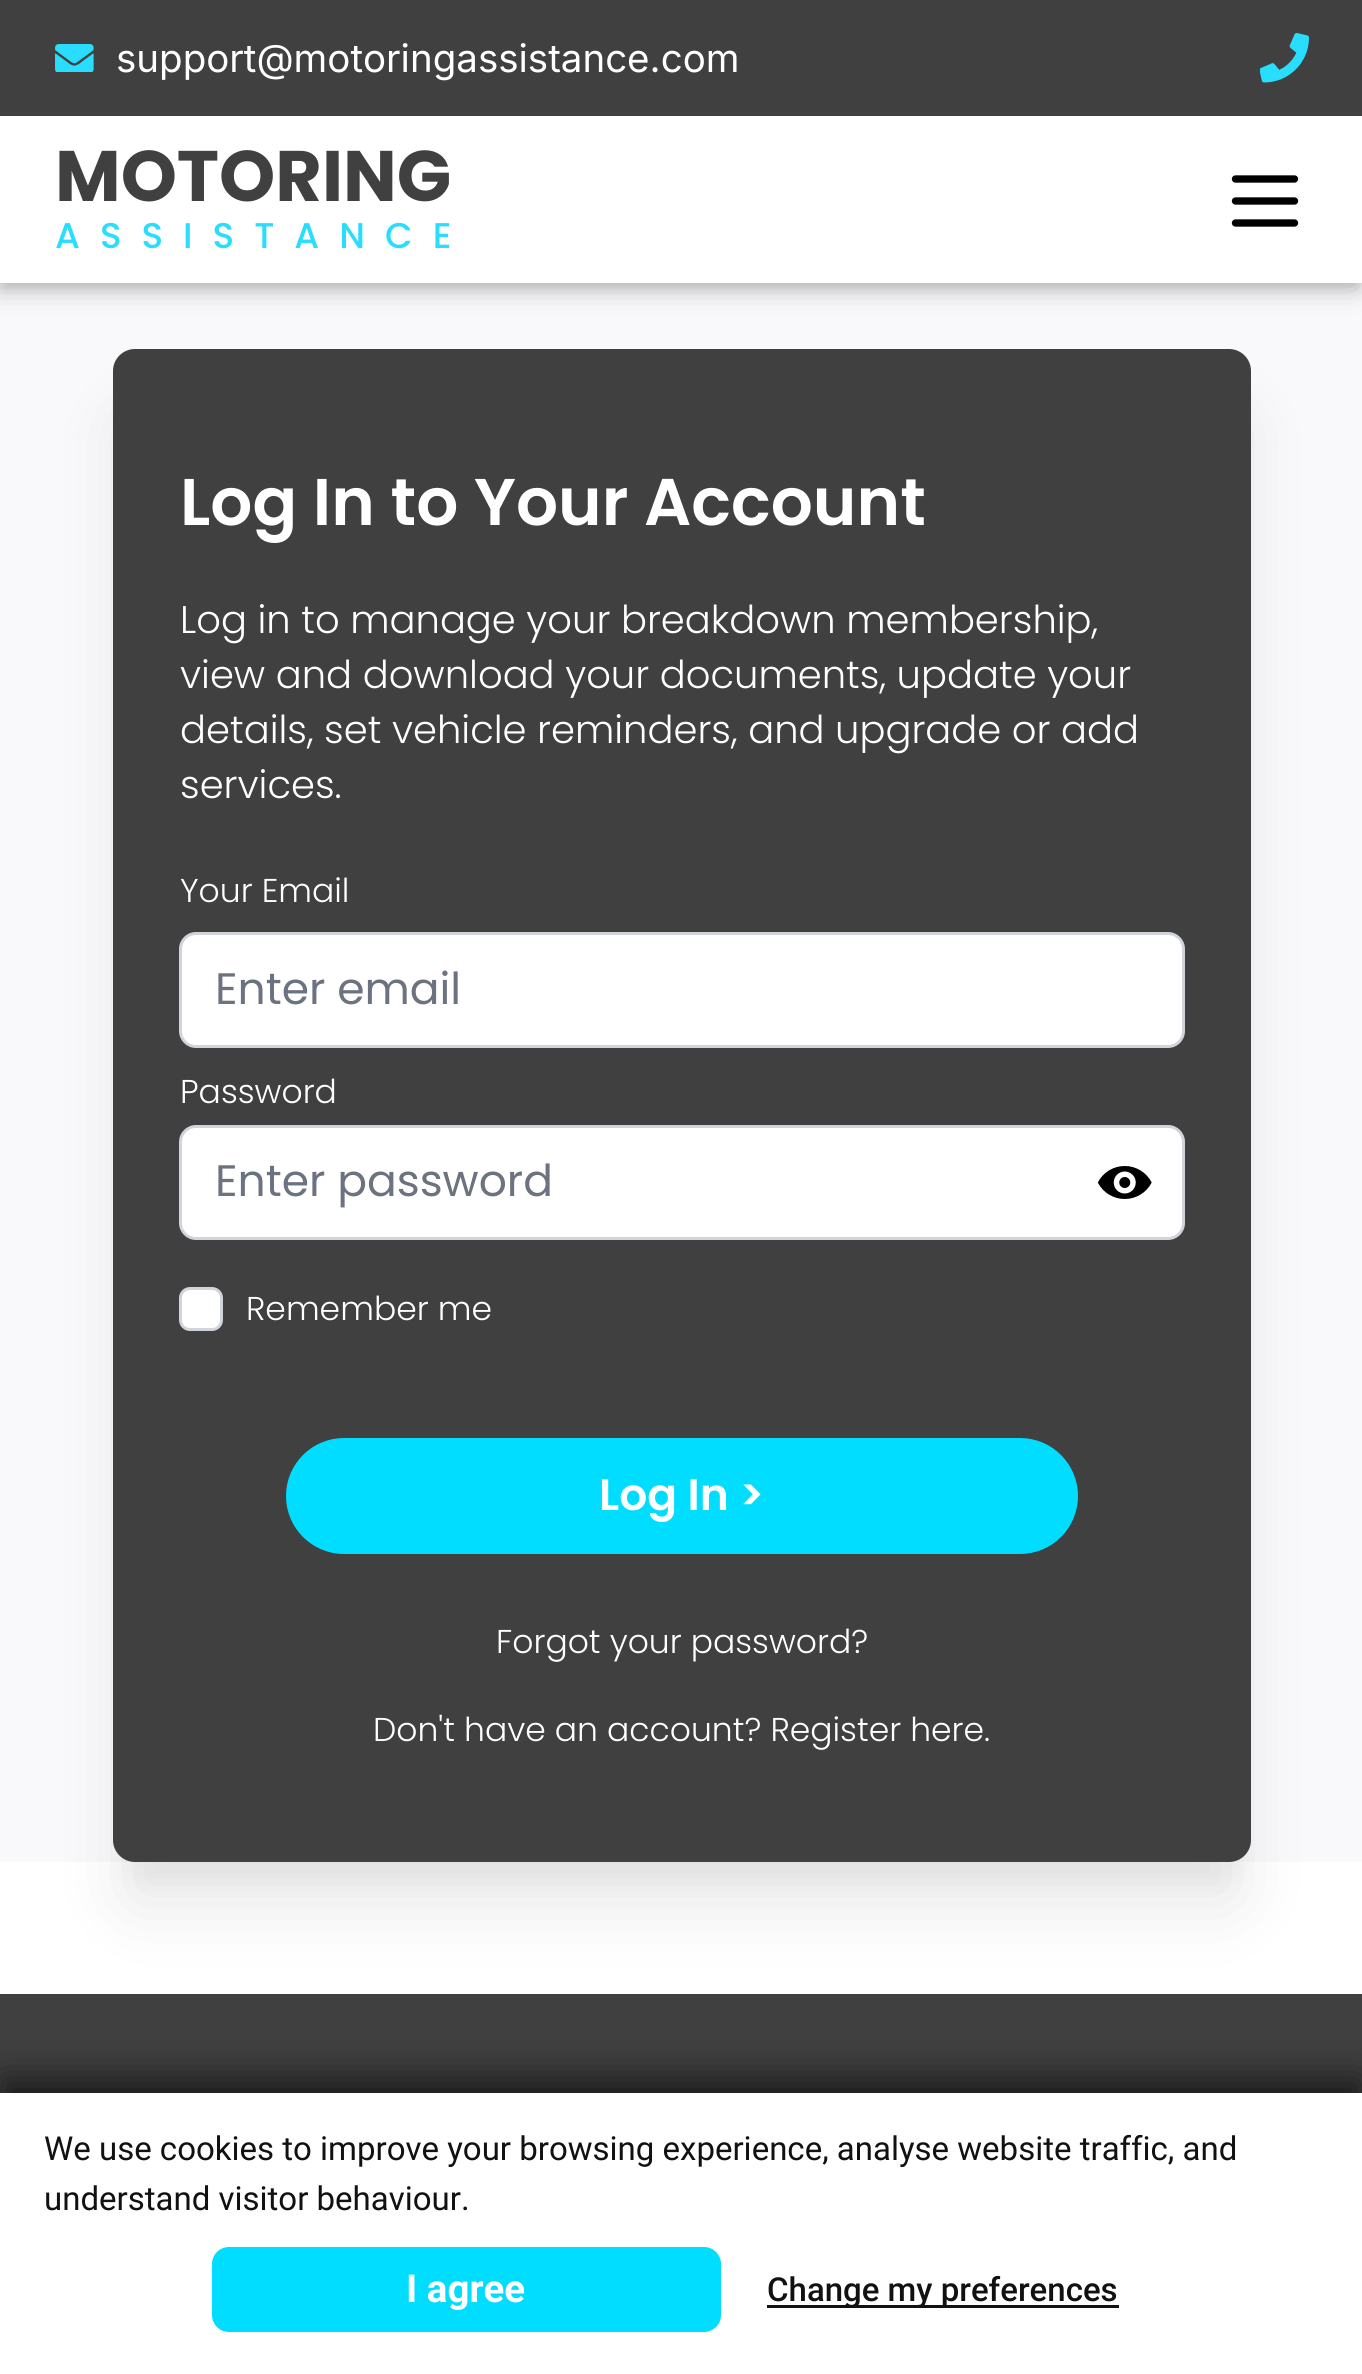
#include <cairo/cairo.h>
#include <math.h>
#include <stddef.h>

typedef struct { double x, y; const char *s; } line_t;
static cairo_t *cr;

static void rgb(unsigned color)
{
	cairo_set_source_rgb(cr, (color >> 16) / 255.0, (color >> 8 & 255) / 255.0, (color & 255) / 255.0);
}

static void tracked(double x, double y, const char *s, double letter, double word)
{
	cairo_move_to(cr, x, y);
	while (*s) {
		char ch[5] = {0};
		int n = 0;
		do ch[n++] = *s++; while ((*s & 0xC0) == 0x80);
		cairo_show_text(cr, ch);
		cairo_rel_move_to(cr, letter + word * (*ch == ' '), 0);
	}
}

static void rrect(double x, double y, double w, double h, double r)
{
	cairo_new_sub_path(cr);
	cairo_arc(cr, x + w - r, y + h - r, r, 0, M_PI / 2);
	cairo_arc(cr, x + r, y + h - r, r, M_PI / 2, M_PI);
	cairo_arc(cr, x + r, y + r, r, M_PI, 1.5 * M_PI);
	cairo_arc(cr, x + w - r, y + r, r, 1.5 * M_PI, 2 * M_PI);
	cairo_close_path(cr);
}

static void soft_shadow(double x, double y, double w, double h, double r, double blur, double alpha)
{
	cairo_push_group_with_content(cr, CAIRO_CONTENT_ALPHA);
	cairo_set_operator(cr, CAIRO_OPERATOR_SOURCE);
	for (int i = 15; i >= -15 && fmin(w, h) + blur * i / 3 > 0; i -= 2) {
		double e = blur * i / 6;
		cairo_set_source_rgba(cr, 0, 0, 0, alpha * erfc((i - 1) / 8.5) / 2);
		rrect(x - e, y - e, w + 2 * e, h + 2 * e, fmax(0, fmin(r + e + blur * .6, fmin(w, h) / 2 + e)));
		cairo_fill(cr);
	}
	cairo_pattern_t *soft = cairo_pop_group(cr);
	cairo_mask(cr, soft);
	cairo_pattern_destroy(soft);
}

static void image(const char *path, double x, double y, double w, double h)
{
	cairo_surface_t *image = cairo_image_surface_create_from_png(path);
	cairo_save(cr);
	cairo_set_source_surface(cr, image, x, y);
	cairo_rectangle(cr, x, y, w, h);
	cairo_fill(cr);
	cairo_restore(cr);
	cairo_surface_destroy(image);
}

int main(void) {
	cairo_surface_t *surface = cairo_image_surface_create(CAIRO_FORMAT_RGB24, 1362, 2374);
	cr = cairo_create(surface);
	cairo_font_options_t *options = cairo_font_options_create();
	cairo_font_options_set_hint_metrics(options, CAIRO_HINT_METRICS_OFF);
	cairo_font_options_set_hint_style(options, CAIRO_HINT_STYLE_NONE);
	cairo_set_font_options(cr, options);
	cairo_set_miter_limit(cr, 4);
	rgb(0xffffff);
	cairo_paint(cr);
	rgb(0xf9f8fa);
	cairo_rectangle(cr, 0, 283, 1362, 1579);
	cairo_fill(cr);
	rgb(0x000000);
	soft_shadow(-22, -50, 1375, 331, 0, 16.5, 0.26);
	rgb(0x404040);
	cairo_rectangle(cr, 0, 0, 1362, 116);
	cairo_fill(cr);
	image("img/1.png", 55, 44, 39, 28);
	image("img/2.png", 1260, 33, 49, 50);
	rgb(0x000000);
	soft_shadow(3, 124, 1358, 162, 0, 5.5, 0.06);
	soft_shadow(3, 129, 1358, 163, 0, 8, 0.1);
	rgb(0xffffff);
	cairo_rectangle(cr, 0, 116, 1362, 167);
	cairo_fill(cr);
	cairo_new_path(cr);
	cairo_move_to(cr, 1235.5, 179);
	cairo_line_to(cr, 1294.5, 179);
	cairo_move_to(cr, 1235.5, 201);
	cairo_line_to(cr, 1294.5, 201);
	cairo_move_to(cr, 1235.5, 223);
	cairo_line_to(cr, 1294.5, 223);
	rgb(0x000000);
	cairo_set_line_width(cr, 7.3);
	cairo_set_line_cap(cr, CAIRO_LINE_CAP_ROUND);
	cairo_set_line_join(cr, CAIRO_LINE_JOIN_ROUND);
	cairo_stroke(cr);
	rgb(0x000000);
	soft_shadow(127, 391, 1111, 1485, 8, 14, 0.04);
	soft_shadow(127, 418, 1111, 1485, 8, 34.5, 0.1);
	rgb(0x404040);
	rrect(113, 349, 1138, 1513, 22);
	cairo_fill(cr);
	rgb(0xffffff);
	rrect(180.5, 933.5, 1003, 113, 15.5);
	cairo_fill_preserve(cr);
	rgb(0xd1d5db);
	cairo_set_line_width(cr, 3);
	cairo_set_line_cap(cr, CAIRO_LINE_CAP_BUTT);
	cairo_set_line_join(cr, CAIRO_LINE_JOIN_MITER);
	cairo_stroke(cr);
	rgb(0xffffff);
	rrect(180.5, 1126.5, 1003, 112, 15.5);
	cairo_fill_preserve(cr);
	rgb(0xd1d5db);
	cairo_stroke(cr);
	image("img/3.png", 1097, 1166, 55, 33);
	rgb(0xffffff);
	rrect(180.5, 1288.5, 41, 41, 9.5);
	cairo_fill_preserve(cr);
	rgb(0xd1d5db);
	cairo_stroke(cr);
	rgb(0x00ddff);
	rrect(286, 1438, 792, 116, 58);
	cairo_fill(cr);
	rgb(0x404040);
	cairo_rectangle(cr, 0, 1994, 1362, 99);
	cairo_fill(cr);
	rgb(0x000000);
	soft_shadow(3, 2079, 1358, 278, 0, 18, 0.6);
	rgb(0xffffff);
	cairo_rectangle(cr, 0, 2093, 1362, 281);
	cairo_fill(cr);
	rgb(0x00ddff);
	rrect(212, 2247, 509, 85, 17);
	cairo_fill(cr);
	rgb(0x111111);
	cairo_rectangle(cr, 767, 2305, 352, 3);
	cairo_fill(cr);
	cairo_select_font_face(cr, "Inter", CAIRO_FONT_SLANT_NORMAL, CAIRO_FONT_WEIGHT_NORMAL);
	cairo_set_font_size(cr, 38.5);
	rgb(0xffffff);
	cairo_move_to(cr, 116, 72);
	cairo_show_text(cr, "support@motoringassistance.com");
	cairo_select_font_face(cr, "Poppins", CAIRO_FONT_SLANT_NORMAL, CAIRO_FONT_WEIGHT_BOLD);
	cairo_set_font_size(cr, 71.5);
	rgb(0x404040);
	cairo_move_to(cr, 55, 201);
	cairo_show_text(cr, "MOTORING");
	cairo_select_font_face(cr, "Poppins Medium", CAIRO_FONT_SLANT_NORMAL, CAIRO_FONT_WEIGHT_NORMAL);
	cairo_set_font_size(cr, 35.75);
	rgb(0x28ddfe);
	tracked(55, 248, "ASSISTANCE", 20, 0);
	cairo_select_font_face(cr, "Poppins SemiBold", CAIRO_FONT_SLANT_NORMAL, CAIRO_FONT_WEIGHT_NORMAL);
	cairo_set_font_size(cr, 66);
	rgb(0xffffff);
	cairo_move_to(cr, 180, 525);
	cairo_show_text(cr, "Log In to Your Account");
	cairo_select_font_face(cr, "Poppins Light", CAIRO_FONT_SLANT_NORMAL, CAIRO_FONT_WEIGHT_NORMAL);
	cairo_set_font_size(cr, 38.5);
	{
		static const line_t items[] = {
			{180, 633, "Log in to manage your breakdown membership,"},
			{180, 688, "view and download your documents, update your"},
			{180, 743, "details, set vehicle reminders, and upgrade or add"},
			{180, 798, "services."},
		};
		for (size_t i = 0; i < sizeof items / sizeof *items; i++) {
			cairo_move_to(cr, items[i].x, items[i].y);
			cairo_show_text(cr, items[i].s);
		}
	}
	cairo_set_font_size(cr, 33);
	cairo_move_to(cr, 180, 902);
	cairo_show_text(cr, "Your Email");
	cairo_select_font_face(cr, "Poppins", CAIRO_FONT_SLANT_NORMAL, CAIRO_FONT_WEIGHT_NORMAL);
	cairo_set_font_size(cr, 44);
	rgb(0x6b7280);
	cairo_move_to(cr, 215, 1004);
	cairo_show_text(cr, "Enter email");
	cairo_select_font_face(cr, "Poppins Light", CAIRO_FONT_SLANT_NORMAL, CAIRO_FONT_WEIGHT_NORMAL);
	cairo_set_font_size(cr, 33);
	rgb(0xffffff);
	cairo_move_to(cr, 180, 1103);
	cairo_show_text(cr, "Password");
	cairo_select_font_face(cr, "Poppins", CAIRO_FONT_SLANT_NORMAL, CAIRO_FONT_WEIGHT_NORMAL);
	cairo_set_font_size(cr, 44);
	rgb(0x6b7280);
	cairo_move_to(cr, 215, 1196);
	cairo_show_text(cr, "Enter password");
	cairo_select_font_face(cr, "Poppins Light", CAIRO_FONT_SLANT_NORMAL, CAIRO_FONT_WEIGHT_NORMAL);
	cairo_set_font_size(cr, 33);
	rgb(0xffffff);
	cairo_move_to(cr, 246, 1320);
	cairo_show_text(cr, "Remember me");
	cairo_select_font_face(cr, "Poppins SemiBold", CAIRO_FONT_SLANT_NORMAL, CAIRO_FONT_WEIGHT_NORMAL);
	cairo_set_font_size(cr, 44);
	cairo_move_to(cr, 599, 1510);
	cairo_show_text(cr, "Log In >");
	cairo_select_font_face(cr, "Poppins Light", CAIRO_FONT_SLANT_NORMAL, CAIRO_FONT_WEIGHT_NORMAL);
	cairo_set_font_size(cr, 33);
	cairo_move_to(cr, 496, 1653);
	cairo_show_text(cr, "Forgot your password?");
	cairo_move_to(cr, 373, 1741);
	cairo_show_text(cr, "Don't have an account? Register here.");
	cairo_select_font_face(cr, "Roboto", CAIRO_FONT_SLANT_NORMAL, CAIRO_FONT_WEIGHT_NORMAL);
	rgb(0x111111);
	cairo_move_to(cr, 44, 2160);
	cairo_show_text(cr, "We use cookies to improve your browsing experience, analyse website traffic, and");
	cairo_move_to(cr, 44, 2210);
	cairo_show_text(cr, "understand visitor behaviour.");
	cairo_select_font_face(cr, "Roboto", CAIRO_FONT_SLANT_NORMAL, CAIRO_FONT_WEIGHT_BOLD);
	cairo_set_font_size(cr, 38.5);
	rgb(0xffffff);
	cairo_move_to(cr, 406, 2302);
	cairo_show_text(cr, "I agree");
	cairo_select_font_face(cr, "Roboto Medium", CAIRO_FONT_SLANT_NORMAL, CAIRO_FONT_WEIGHT_NORMAL);
	cairo_set_font_size(cr, 33);
	rgb(0x111111);
	cairo_move_to(cr, 767, 2301);
	cairo_show_text(cr, "Change my preferences");
	cairo_surface_write_to_png(surface, "page.png");
	cairo_font_options_destroy(options);
	cairo_destroy(cr);
	cairo_surface_destroy(surface);
	return 0;
}
